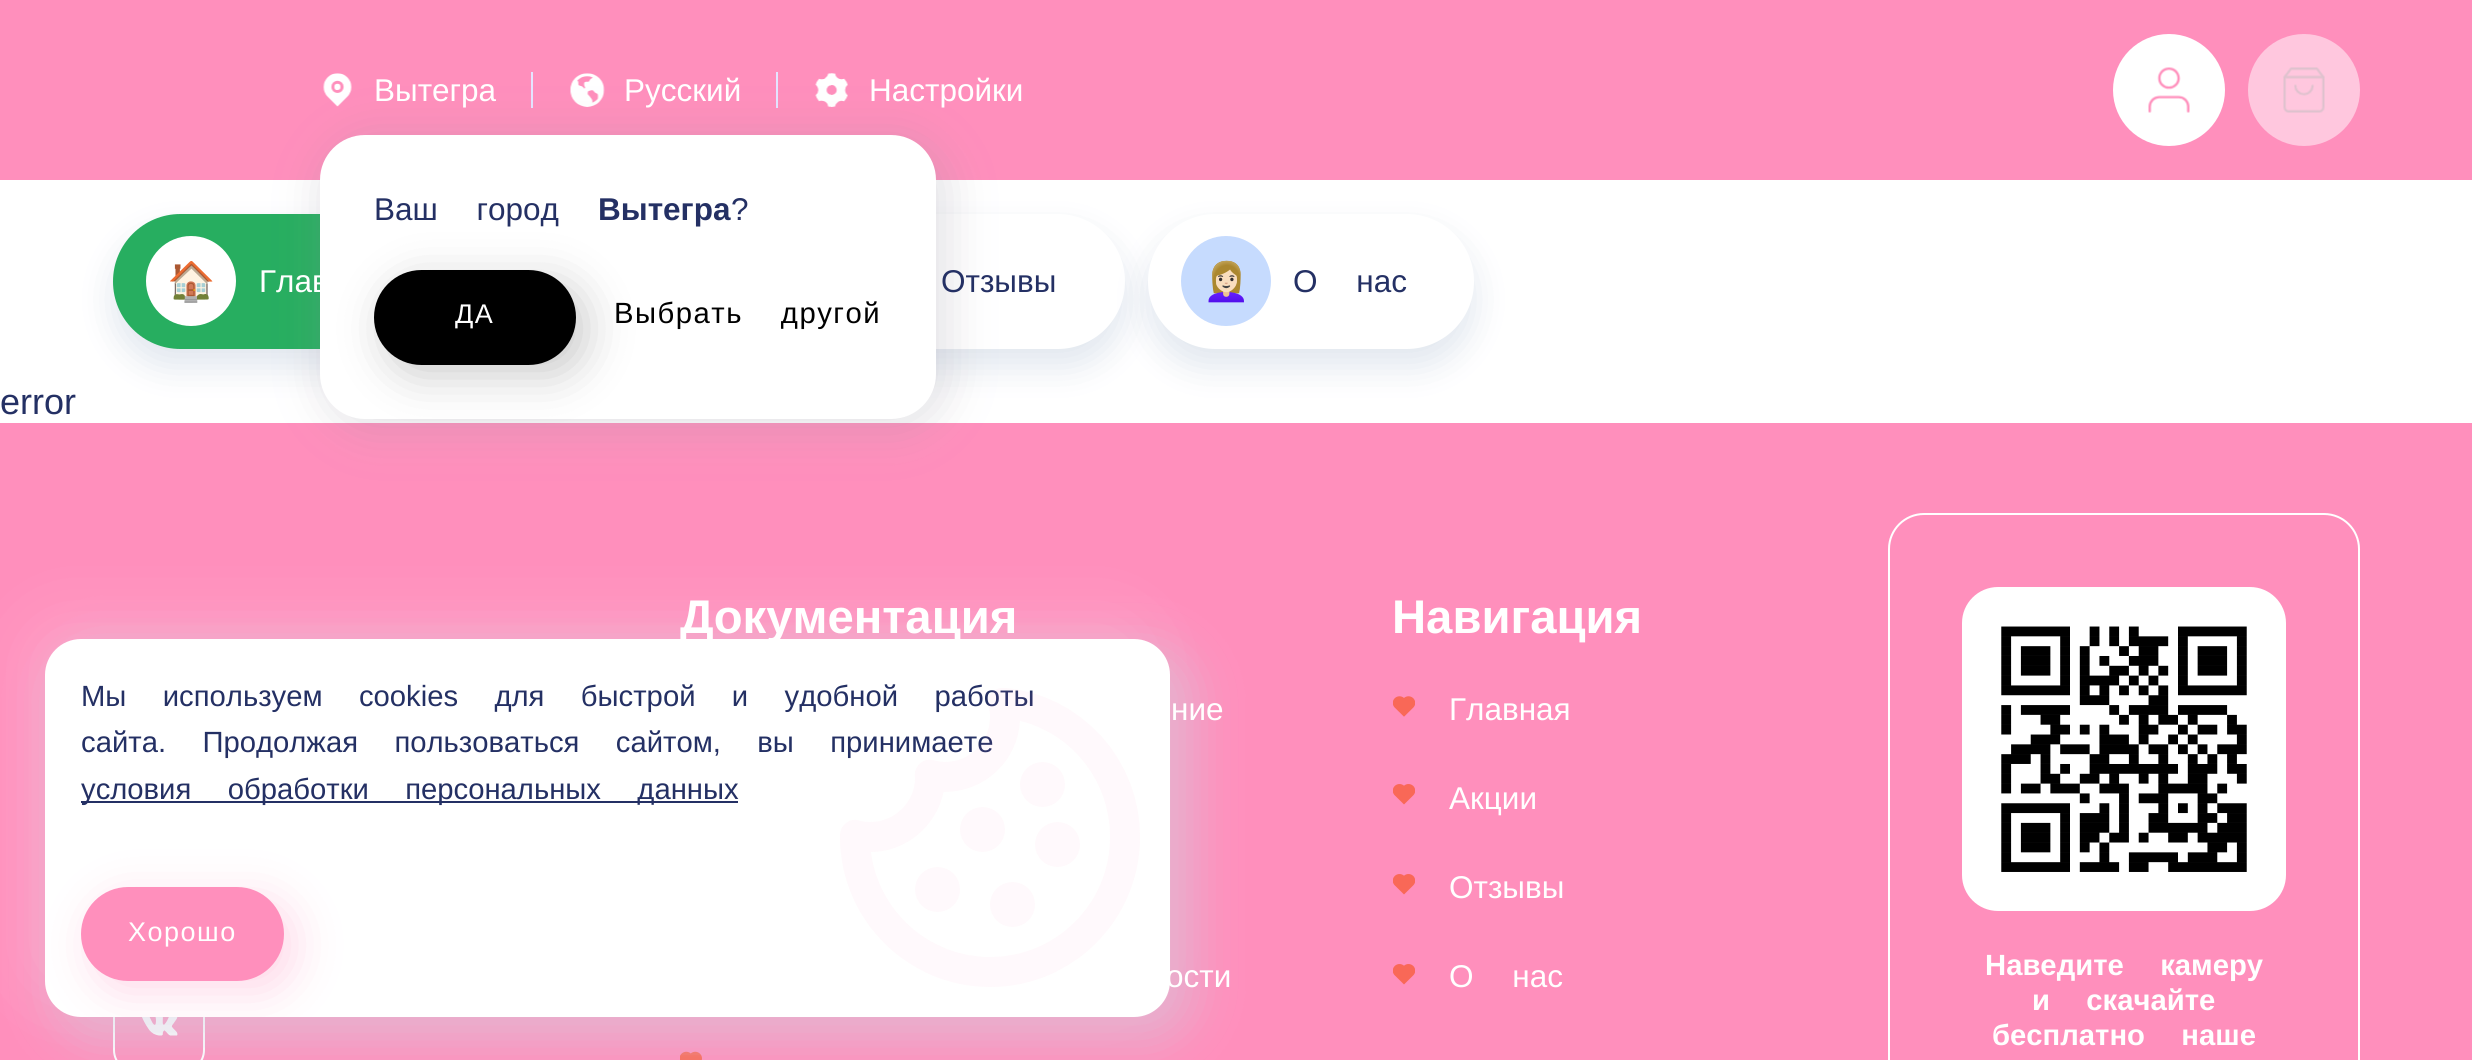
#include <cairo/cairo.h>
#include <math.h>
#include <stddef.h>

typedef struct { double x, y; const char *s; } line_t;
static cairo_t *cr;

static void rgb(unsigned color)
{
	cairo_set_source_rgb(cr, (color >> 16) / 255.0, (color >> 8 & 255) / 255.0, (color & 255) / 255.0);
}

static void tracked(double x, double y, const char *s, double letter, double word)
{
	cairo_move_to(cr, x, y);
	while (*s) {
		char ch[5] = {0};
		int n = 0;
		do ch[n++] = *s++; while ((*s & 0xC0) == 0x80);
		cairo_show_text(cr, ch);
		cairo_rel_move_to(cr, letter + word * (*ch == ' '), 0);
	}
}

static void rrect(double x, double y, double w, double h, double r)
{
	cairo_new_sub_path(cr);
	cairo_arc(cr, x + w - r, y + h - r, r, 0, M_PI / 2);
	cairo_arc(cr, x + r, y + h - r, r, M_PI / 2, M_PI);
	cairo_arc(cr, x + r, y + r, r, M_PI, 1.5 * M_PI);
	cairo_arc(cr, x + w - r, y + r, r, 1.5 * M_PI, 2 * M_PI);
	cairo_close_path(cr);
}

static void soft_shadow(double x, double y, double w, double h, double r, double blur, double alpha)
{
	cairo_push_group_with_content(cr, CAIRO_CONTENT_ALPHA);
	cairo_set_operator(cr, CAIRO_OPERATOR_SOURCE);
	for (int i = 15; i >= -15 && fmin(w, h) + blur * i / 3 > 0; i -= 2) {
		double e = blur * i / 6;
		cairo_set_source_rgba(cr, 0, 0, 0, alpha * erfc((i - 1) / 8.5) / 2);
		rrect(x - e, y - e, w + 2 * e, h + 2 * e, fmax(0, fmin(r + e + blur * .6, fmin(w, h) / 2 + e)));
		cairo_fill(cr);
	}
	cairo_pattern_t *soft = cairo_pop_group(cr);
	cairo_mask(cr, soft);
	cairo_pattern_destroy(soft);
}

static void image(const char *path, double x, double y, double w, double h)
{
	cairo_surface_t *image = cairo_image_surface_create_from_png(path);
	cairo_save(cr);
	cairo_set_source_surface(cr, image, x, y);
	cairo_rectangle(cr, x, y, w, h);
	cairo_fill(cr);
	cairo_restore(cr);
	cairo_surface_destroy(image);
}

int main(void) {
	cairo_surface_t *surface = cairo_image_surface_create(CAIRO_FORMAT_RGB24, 2472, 1060);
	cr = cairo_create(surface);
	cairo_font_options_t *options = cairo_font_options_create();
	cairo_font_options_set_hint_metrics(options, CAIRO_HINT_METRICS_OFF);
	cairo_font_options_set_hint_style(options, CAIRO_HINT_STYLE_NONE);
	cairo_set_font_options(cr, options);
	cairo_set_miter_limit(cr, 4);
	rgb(0xffffff);
	cairo_paint(cr);
	rgb(0xff8fbc);
	cairo_rectangle(cr, 0, 0, 2472, 180);
	cairo_fill(cr);
	rgb(0xe4e4ff);
	cairo_rectangle(cr, 776, 72, 2, 36);
	cairo_fill(cr);
	image("img/1.png", 570, 73, 35, 34);
	image("img/2.png", 815, 73, 33, 34);
	cairo_rectangle(cr, 531, 72, 2, 36);
	cairo_fill(cr);
	image("img/3.png", 323, 73, 29, 34);
	rgb(0x345e92);
	soft_shadow(113, 232, 335, 135, 67.5, 17, 0.15);
	rgb(0x27ae60);
	rrect(113, 214, 335, 135, 67.5);
	cairo_fill(cr);
	rgb(0x345e92);
	soft_shadow(794, 232, 331, 135, 67.5, 17, 0.15);
	rgb(0xffffff);
	rrect(794, 214, 331, 135, 67.5);
	cairo_fill(cr);
	rgb(0xff8fbc);
	cairo_rectangle(cr, 0, 423, 2472, 637);
	cairo_fill(cr);
	rgb(0xffffff);
	soft_shadow(331, 146, 616, 284, 45, 22.5, 0.1);
	rgb(0x787485);
	soft_shadow(320, 135, 630, 297, 52, 22.5, 0.2);
	rgb(0xffffff);
	rrect(320, 135, 616, 284, 45);
	cairo_fill(cr);
	rgb(0x000000);
	soft_shadow(385, 281, 202, 95, 47.5, 22.5, 0.2);
	rgb(0x000000);
	rrect(374, 270, 202, 95, 47.5);
	cairo_fill(cr);
	rgb(0xffffff);
	cairo_arc(cr, 2169, 90, 56, 0, 2 * M_PI);
	cairo_fill(cr);
	image("img/4.png", 2148, 67, 42, 46);
	rgb(0xffc7de);
	cairo_arc(cr, 2304, 90, 56, 0, 2 * M_PI);
	cairo_fill(cr);
	image("img/5.png", 2283, 67, 42, 46);
	rgb(0xffffff);
	cairo_arc(cr, 191, 281, 45, 0, 2 * M_PI);
	cairo_fill(cr);
	image("img/6.png", 170, 261, 43, 42);
	rgb(0x345e92);
	soft_shadow(1148, 232, 326, 135, 67.5, 17, 0.15);
	rgb(0xffffff);
	rrect(1148, 214, 326, 135, 67.5);
	cairo_fill(cr);
	rgb(0xc6dbfe);
	cairo_arc(cr, 1226, 281, 45, 0, 2 * M_PI);
	cairo_fill(cr);
	image("img/7.png", 1208, 260, 36, 43);
	image("img/8.png", 680, 1051, 22, 9);
	image("img/9.png", 1393, 696, 22, 21);
	image("img/10.png", 1393, 784, 22, 21);
	image("img/10.png", 1393, 874, 22, 21);
	image("img/10.png", 1393, 964, 22, 21);
	rrect(114, 982, 90, 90, 22);
	rgb(0xffffff);
	cairo_stroke(cr);
	image("img/11.png", 142, 1017, 36, 19);
	rrect(1889, 514, 470, 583, 35);
	cairo_stroke(cr);
	image("img/12.png", 1962, 587, 324, 324);
	rgb(0xffffff);
	soft_shadow(23, 617, 1125, 378, 36, 34, 0.15);
	rgb(0xd0cddd);
	soft_shadow(50, 644, 1147, 400, 47, 22.5, 0.5);
	rgb(0xffffff);
	rrect(45, 639, 1125, 378, 36);
	cairo_fill(cr);
	rgb(0x243064);
	cairo_rectangle(cr, 81, 801, 657, 2);
	cairo_fill(cr);
	cairo_save(cr);
	rrect(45, 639, 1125, 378, 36);
	cairo_clip(cr);
	rgb(0xff3f8c);
	soft_shadow(92, 898, 203, 94, 47, 22.5, 0.2);
	cairo_restore(cr);
	rgb(0xff8fbc);
	rrect(81, 887, 203, 94, 47);
	cairo_fill(cr);
	cairo_select_font_face(cr, "Liberation Sans", CAIRO_FONT_SLANT_NORMAL, CAIRO_FONT_WEIGHT_NORMAL);
	cairo_set_font_size(cr, 31.5);
	rgb(0xffffff);
	{
		static const line_t items[] = {
			{624, 101, "Русский"},
			{869, 101, "Настройки"},
			{374, 101, "Вытегра"},
		};
		for (size_t i = 0; i < sizeof items / sizeof *items; i++) {
			cairo_move_to(cr, items[i].x, items[i].y);
			cairo_show_text(cr, items[i].s);
		}
	}
	rgb(0x243064);
	tracked(374, 220, "Ваш город", 0, 30);
	cairo_select_font_face(cr, "Liberation Sans", CAIRO_FONT_SLANT_NORMAL, CAIRO_FONT_WEIGHT_BOLD);
	cairo_move_to(cr, 598, 220);
	cairo_show_text(cr, "Вытегра");
	cairo_select_font_face(cr, "Liberation Sans", CAIRO_FONT_SLANT_NORMAL, CAIRO_FONT_WEIGHT_NORMAL);
	cairo_move_to(cr, 731, 220);
	cairo_show_text(cr, "?");
	cairo_set_font_size(cr, 27);
	rgb(0xffffff);
	tracked(455, 323, "ДА", 1.5, 0);
	cairo_set_font_size(cr, 29.25);
	rgb(0x000000);
	tracked(614, 323, "Выбрать другой", 1.5, 28.25);
	cairo_set_font_size(cr, 31.5);
	rgb(0xffffff);
	cairo_move_to(cr, 259, 292);
	cairo_show_text(cr, "Глав");
	rgb(0x243064);
	cairo_move_to(cr, 941, 292);
	cairo_show_text(cr, "Отзывы");
	tracked(1293, 292, "О нас", 0, 30);
	cairo_set_font_size(cr, 36);
	cairo_move_to(cr, 0, 414);
	cairo_show_text(cr, "error");
	cairo_select_font_face(cr, "Liberation Sans", CAIRO_FONT_SLANT_NORMAL, CAIRO_FONT_WEIGHT_BOLD);
	cairo_set_font_size(cr, 47.25);
	rgb(0xffffff);
	cairo_move_to(cr, 680, 633);
	cairo_show_text(cr, "Документация");
	cairo_select_font_face(cr, "Liberation Sans", CAIRO_FONT_SLANT_NORMAL, CAIRO_FONT_WEIGHT_NORMAL);
	cairo_set_font_size(cr, 31.5);
	tracked(1171, 720, "ние", 0, 30);
	tracked(1166, 987, "ости", 0, 30);
	cairo_select_font_face(cr, "Liberation Sans", CAIRO_FONT_SLANT_NORMAL, CAIRO_FONT_WEIGHT_BOLD);
	cairo_set_font_size(cr, 47.25);
	cairo_move_to(cr, 1392, 633);
	cairo_show_text(cr, "Навигация");
	cairo_select_font_face(cr, "Liberation Sans", CAIRO_FONT_SLANT_NORMAL, CAIRO_FONT_WEIGHT_NORMAL);
	cairo_set_font_size(cr, 31.5);
	{
		static const line_t items[] = {
			{1449, 720, "Главная"},
			{1449, 809, "Акции"},
			{1449, 898, "Отзывы"},
		};
		for (size_t i = 0; i < sizeof items / sizeof *items; i++) {
			cairo_move_to(cr, items[i].x, items[i].y);
			cairo_show_text(cr, items[i].s);
		}
	}
	tracked(1449, 987, "О нас", 0, 30);
	cairo_select_font_face(cr, "Liberation Sans", CAIRO_FONT_SLANT_NORMAL, CAIRO_FONT_WEIGHT_BOLD);
	cairo_set_font_size(cr, 29.25);
	{
		static const line_t items[] = {
			{1985, 975, "Наведите камеру"},
			{2032, 1010, "и скачайте"},
			{1992, 1045, "бесплатно наше"},
		};
		for (size_t i = 0; i < sizeof items / sizeof *items; i++) {
			tracked(items[i].x, items[i].y, items[i].s, 0, 28.25);
		}
	}
	cairo_select_font_face(cr, "Liberation Sans", CAIRO_FONT_SLANT_NORMAL, CAIRO_FONT_WEIGHT_NORMAL);
	rgb(0x243064);
	{
		static const line_t items[] = {
			{81, 706, "Мы используем cookies для быстрой и удобной работы"},
			{81, 752, "сайта. Продолжая пользоваться сайтом, вы принимаете"},
			{81, 799, "условия обработки персональных данных"},
		};
		for (size_t i = 0; i < sizeof items / sizeof *items; i++) {
			tracked(items[i].x, items[i].y, items[i].s, 0, 28.25);
		}
	}
	cairo_set_font_size(cr, 27);
	rgb(0xffffff);
	tracked(128, 941, "Хорошо", 1.5, 0);
	image("img/13.png", 840, 688, 300, 299);
	cairo_surface_write_to_png(surface, "page.png");
	cairo_font_options_destroy(options);
	cairo_destroy(cr);
	cairo_surface_destroy(surface);
	return 0;
}
